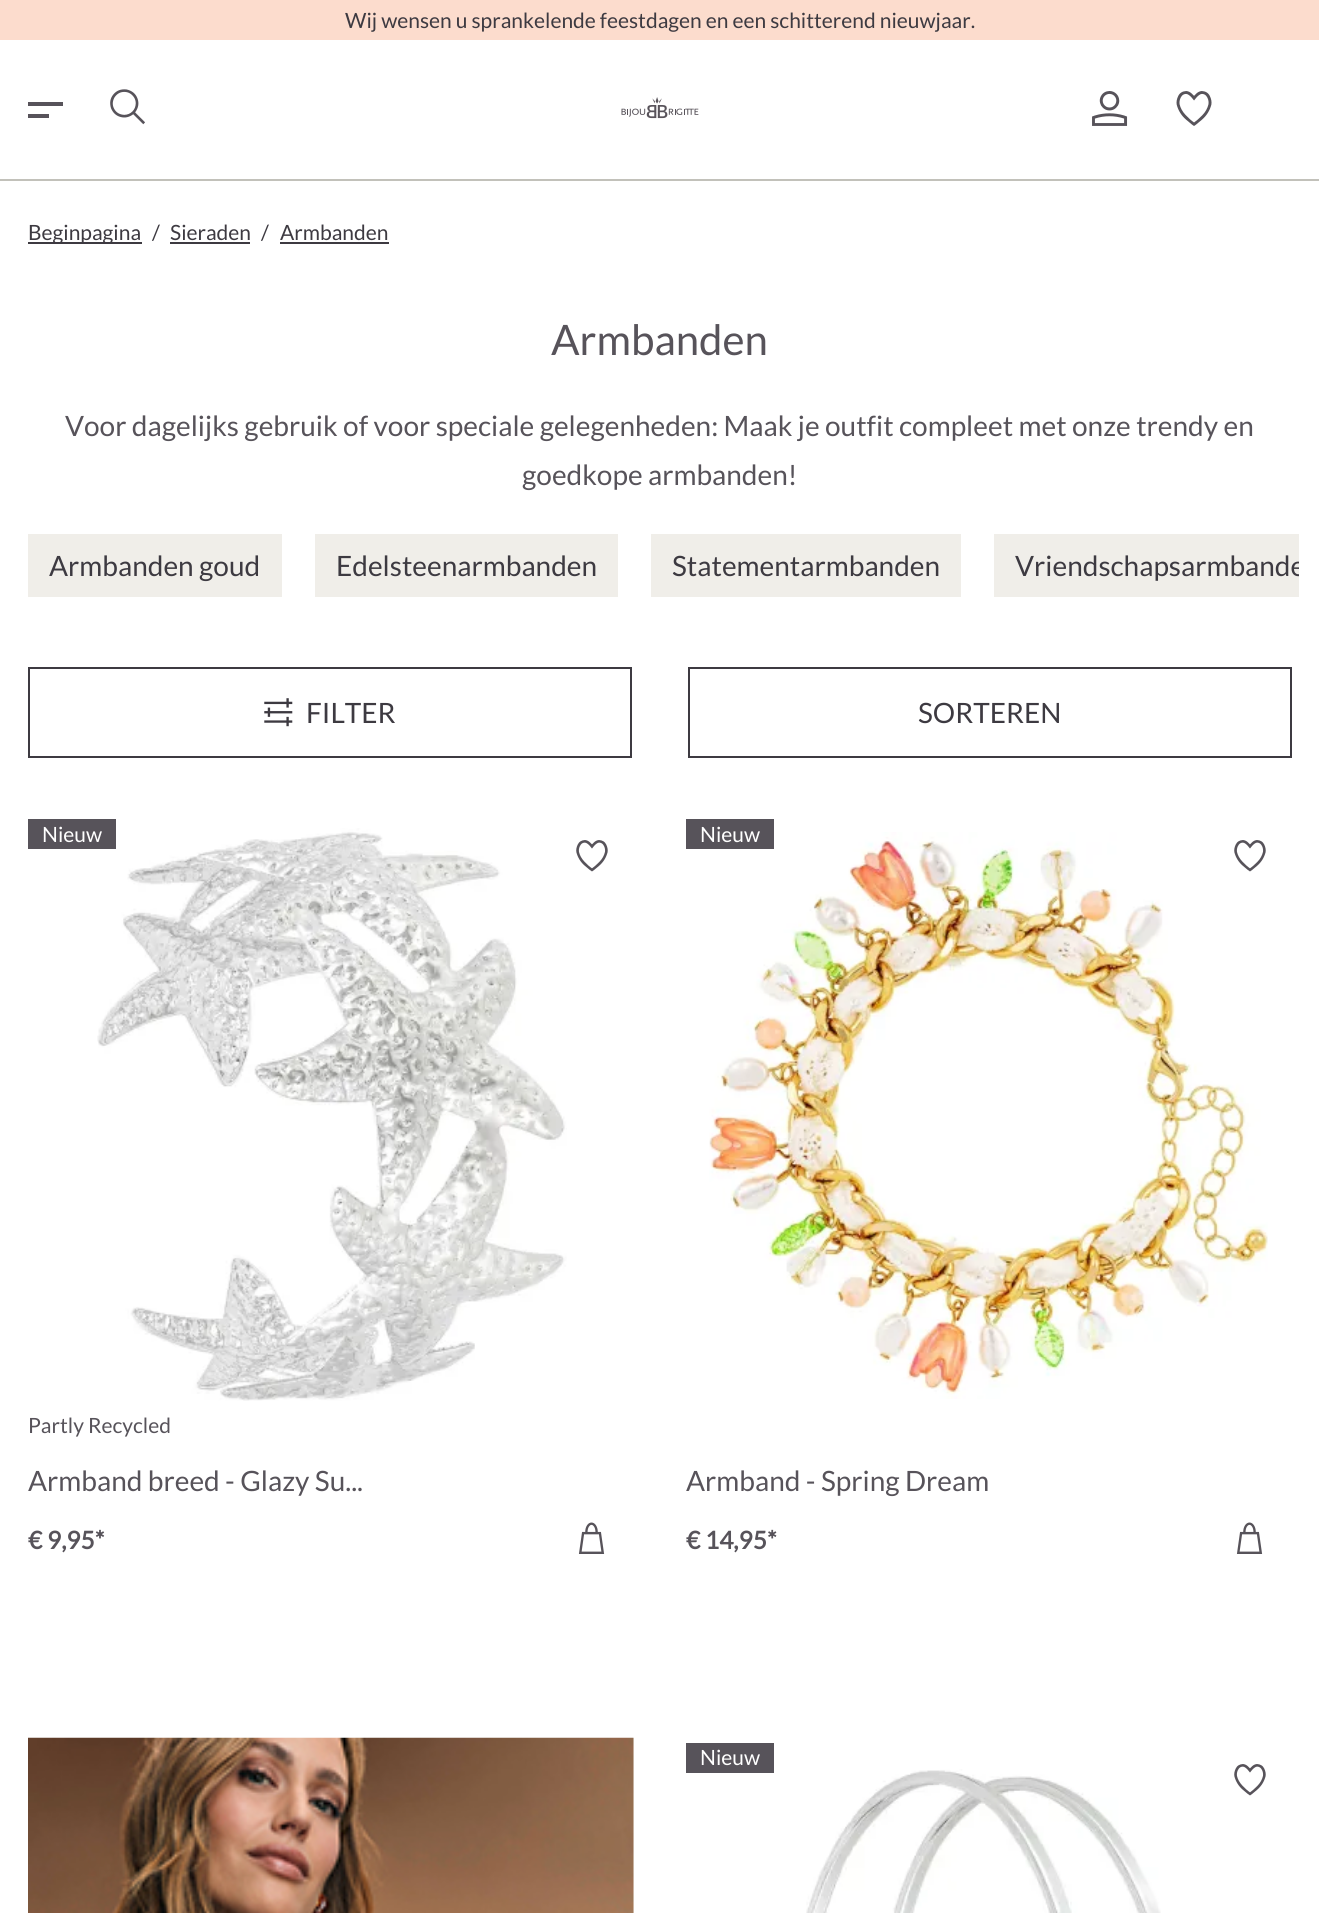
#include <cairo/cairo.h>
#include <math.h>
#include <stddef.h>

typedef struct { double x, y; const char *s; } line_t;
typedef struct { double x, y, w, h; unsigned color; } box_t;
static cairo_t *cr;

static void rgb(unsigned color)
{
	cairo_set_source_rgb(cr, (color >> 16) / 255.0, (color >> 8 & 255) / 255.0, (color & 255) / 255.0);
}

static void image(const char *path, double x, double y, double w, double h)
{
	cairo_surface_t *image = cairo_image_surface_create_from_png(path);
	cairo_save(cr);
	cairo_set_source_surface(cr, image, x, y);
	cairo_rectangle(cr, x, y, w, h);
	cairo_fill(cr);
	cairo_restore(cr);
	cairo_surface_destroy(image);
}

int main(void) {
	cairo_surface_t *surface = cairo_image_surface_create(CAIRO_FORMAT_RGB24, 1319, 1913);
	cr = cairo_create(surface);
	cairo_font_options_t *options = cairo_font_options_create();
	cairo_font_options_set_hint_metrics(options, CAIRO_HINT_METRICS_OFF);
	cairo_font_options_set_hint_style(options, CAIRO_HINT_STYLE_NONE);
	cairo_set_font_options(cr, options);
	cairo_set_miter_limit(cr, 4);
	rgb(0xffffff);
	cairo_paint(cr);
	{
		static const box_t items[] = {
			{0, 179, 1319, 2, 0xc2c1ba},
			{0, 0, 1319, 40, 0xfcdccd},
			{28, 102, 35, 4, 0x57535a},
			{28, 114, 21, 4, 0x57535a},
		};
		for (size_t i = 0; i < sizeof items / sizeof *items; i++) {
			rgb(items[i].color);
			cairo_rectangle(cr, items[i].x, items[i].y, items[i].w, items[i].h);
			cairo_fill(cr);
		}
	}
	image("img/1.png", 110, 89, 35, 36);
	image("img/2.png", 621, 97, 78, 22);
	image("img/3.png", 1092, 91, 36, 35);
	image("img/4.png", 1176, 91, 36, 35);
	{
		static const box_t items[] = {
			{28, 242, 114, 2, 0x3d3a41},
			{170, 242, 80, 2, 0x3d3a41},
			{280, 242, 109, 2, 0x3d3a41},
			{28, 534, 254, 63, 0xf0eee9},
			{315, 534, 303, 63, 0xf0eee9},
			{651, 534, 310, 63, 0xf0eee9},
			{994, 534, 305, 63, 0xf0eee9},
		};
		for (size_t i = 0; i < sizeof items / sizeof *items; i++) {
			rgb(items[i].color);
			cairo_rectangle(cr, items[i].x, items[i].y, items[i].w, items[i].h);
			cairo_fill(cr);
		}
	}
	cairo_rectangle(cr, 29, 668, 602, 89);
	rgb(0x3d3a41);
	cairo_stroke(cr);
	image("img/5.png", 264, 698, 29, 29);
	cairo_rectangle(cr, 689, 668, 602, 89);
	cairo_stroke(cr);
	image("img/6.png", 97, 828, 470, 573);
	rgb(0x57535a);
	cairo_rectangle(cr, 28, 819, 88, 30);
	cairo_fill(cr);
	image("img/7.png", 576, 840, 32, 32);
	image("img/8.png", 578, 1522, 27, 32);
	image("img/9.png", 709, 832, 559, 567);
	cairo_rectangle(cr, 686, 819, 88, 30);
	cairo_fill(cr);
	image("img/7.png", 1234, 840, 32, 32);
	image("img/8.png", 1236, 1522, 27, 32);
	rgb(0xf7f7f0);
	cairo_rectangle(cr, 633, 1738, 1, 175);
	cairo_fill(cr);
	image("img/10.png", 28, 1737, 606, 176);
	rgb(0x57535a);
	cairo_rectangle(cr, 686, 1743, 88, 30);
	cairo_fill(cr);
	image("img/11.png", 806, 1769, 355, 144);
	image("img/7.png", 1234, 1764, 32, 32);
	cairo_select_font_face(cr, "Lato", CAIRO_FONT_SLANT_NORMAL, CAIRO_FONT_WEIGHT_NORMAL);
	cairo_set_font_size(cr, 21);
	rgb(0x3d3a41);
	{
		static const line_t items[] = {
			{345, 28, "Wij wensen u sprankelende feestdagen en een schitterend nieuwjaar."},
			{28, 240, "Beginpagina"},
			{152, 240, "/"},
			{170, 240, "Sieraden"},
			{261, 240, "/"},
			{280, 240, "Armbanden"},
		};
		for (size_t i = 0; i < sizeof items / sizeof *items; i++) {
			cairo_move_to(cr, items[i].x, items[i].y);
			cairo_show_text(cr, items[i].s);
		}
	}
	cairo_set_font_size(cr, 42);
	rgb(0x57535a);
	cairo_move_to(cr, 551, 355);
	cairo_show_text(cr, "Armbanden");
	cairo_set_font_size(cr, 28);
	cairo_move_to(cr, 65, 436);
	cairo_show_text(cr, "Voor dagelijks gebruik of voor speciale gelegenheden: Maak je outfit compleet met onze trendy en");
	cairo_move_to(cr, 522, 485);
	cairo_show_text(cr, "goedkope armbanden!");
	rgb(0x3d3a41);
	{
		static const line_t items[] = {
			{49, 576, "Armbanden goud"},
			{336, 576, "Edelsteenarmbanden"},
			{672, 576, "Statementarmbanden"},
		};
		for (size_t i = 0; i < sizeof items / sizeof *items; i++) {
			cairo_move_to(cr, items[i].x, items[i].y);
			cairo_show_text(cr, items[i].s);
		}
	}
	cairo_save(cr);
	cairo_rectangle(cr, 21, 527, 1278, 84);
	cairo_clip(cr);
	cairo_move_to(cr, 1015, 576);
	cairo_show_text(cr, "Vriendschapsarmbande");
	cairo_restore(cr);
	cairo_move_to(cr, 306, 723);
	cairo_show_text(cr, "FILTER");
	cairo_move_to(cr, 918, 723);
	cairo_show_text(cr, "SORTEREN");
	cairo_set_font_size(cr, 21);
	rgb(0xffffff);
	cairo_move_to(cr, 42, 842);
	cairo_show_text(cr, "Nieuw");
	rgb(0x57535a);
	cairo_move_to(cr, 28, 1433);
	cairo_show_text(cr, "Partly Recycled");
	cairo_set_font_size(cr, 28);
	cairo_move_to(cr, 28, 1491);
	cairo_show_text(cr, "Armband breed - Glazy Su...");
	cairo_select_font_face(cr, "Lato", CAIRO_FONT_SLANT_NORMAL, CAIRO_FONT_WEIGHT_BOLD);
	cairo_set_font_size(cr, 24.5);
	cairo_move_to(cr, 28, 1549);
	cairo_show_text(cr, "€ 9,95*");
	cairo_select_font_face(cr, "Lato", CAIRO_FONT_SLANT_NORMAL, CAIRO_FONT_WEIGHT_NORMAL);
	cairo_set_font_size(cr, 21);
	rgb(0xffffff);
	cairo_move_to(cr, 700, 842);
	cairo_show_text(cr, "Nieuw");
	cairo_set_font_size(cr, 28);
	rgb(0x57535a);
	cairo_move_to(cr, 686, 1491);
	cairo_show_text(cr, "Armband - Spring Dream");
	cairo_select_font_face(cr, "Lato", CAIRO_FONT_SLANT_NORMAL, CAIRO_FONT_WEIGHT_BOLD);
	cairo_set_font_size(cr, 24.5);
	cairo_move_to(cr, 686, 1549);
	cairo_show_text(cr, "€ 14,95*");
	cairo_select_font_face(cr, "Lato", CAIRO_FONT_SLANT_NORMAL, CAIRO_FONT_WEIGHT_NORMAL);
	cairo_set_font_size(cr, 21);
	rgb(0xffffff);
	cairo_move_to(cr, 700, 1765);
	cairo_show_text(cr, "Nieuw");
	cairo_surface_write_to_png(surface, "page.png");
	cairo_font_options_destroy(options);
	cairo_destroy(cr);
	cairo_surface_destroy(surface);
	return 0;
}
